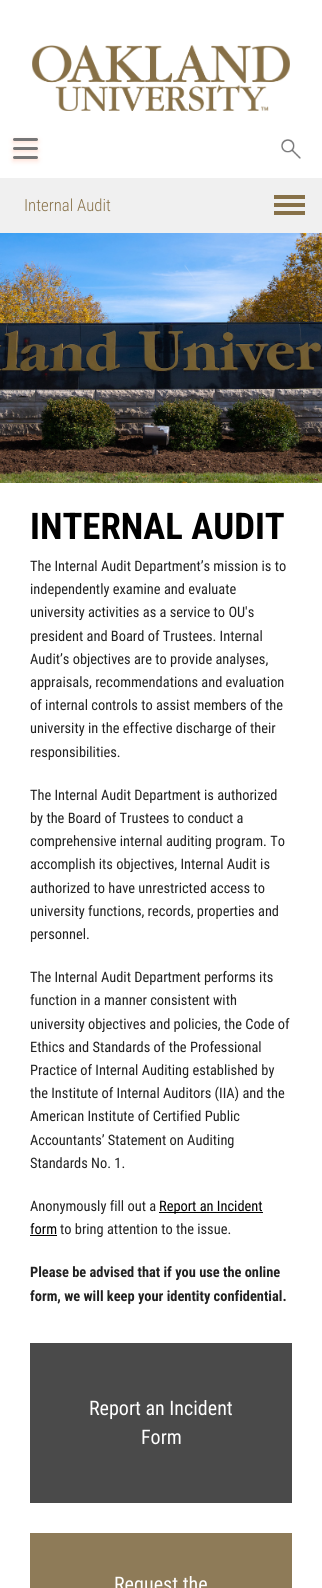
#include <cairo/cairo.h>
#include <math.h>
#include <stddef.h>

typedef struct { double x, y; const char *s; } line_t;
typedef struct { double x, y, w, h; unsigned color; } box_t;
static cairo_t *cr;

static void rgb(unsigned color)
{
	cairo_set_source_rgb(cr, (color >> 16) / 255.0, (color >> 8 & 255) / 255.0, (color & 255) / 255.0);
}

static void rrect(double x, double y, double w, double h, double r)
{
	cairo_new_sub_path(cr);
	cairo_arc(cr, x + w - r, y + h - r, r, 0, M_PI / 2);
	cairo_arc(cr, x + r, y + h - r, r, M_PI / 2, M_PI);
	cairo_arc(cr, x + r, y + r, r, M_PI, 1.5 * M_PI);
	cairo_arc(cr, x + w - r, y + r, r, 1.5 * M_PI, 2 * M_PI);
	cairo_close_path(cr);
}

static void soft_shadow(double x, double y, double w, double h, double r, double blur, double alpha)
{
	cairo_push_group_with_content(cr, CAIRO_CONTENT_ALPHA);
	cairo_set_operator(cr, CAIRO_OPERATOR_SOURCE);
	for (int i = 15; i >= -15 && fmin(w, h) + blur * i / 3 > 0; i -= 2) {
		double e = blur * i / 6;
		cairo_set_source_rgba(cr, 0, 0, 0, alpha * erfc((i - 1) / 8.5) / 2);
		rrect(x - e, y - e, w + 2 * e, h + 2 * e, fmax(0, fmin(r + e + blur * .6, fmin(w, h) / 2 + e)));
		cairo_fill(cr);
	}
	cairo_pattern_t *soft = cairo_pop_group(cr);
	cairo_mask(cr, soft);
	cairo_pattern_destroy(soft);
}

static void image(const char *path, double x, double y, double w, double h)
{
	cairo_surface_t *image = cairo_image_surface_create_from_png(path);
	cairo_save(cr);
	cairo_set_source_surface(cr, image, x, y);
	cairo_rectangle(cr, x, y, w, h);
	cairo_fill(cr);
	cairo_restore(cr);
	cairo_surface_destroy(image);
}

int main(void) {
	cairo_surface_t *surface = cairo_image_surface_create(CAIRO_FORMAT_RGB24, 322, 1588);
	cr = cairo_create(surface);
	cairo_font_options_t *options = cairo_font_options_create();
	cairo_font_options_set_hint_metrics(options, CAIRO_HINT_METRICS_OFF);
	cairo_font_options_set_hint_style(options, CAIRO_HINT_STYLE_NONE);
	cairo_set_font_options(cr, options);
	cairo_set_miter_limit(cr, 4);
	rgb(0xffffff);
	cairo_paint(cr);
	image("img/1.png", 32, 45, 258, 66);
	rgb(0xff652f);
	soft_shadow(13, 149, 25, 3, 1.5, 2.5, 0.2);
	rgb(0x767677);
	rrect(13, 147, 25, 3, 1.5);
	cairo_fill(cr);
	rgb(0xff652f);
	soft_shadow(13, 140, 25, 3, 1.5, 2.5, 0.2);
	rgb(0x767677);
	rrect(13, 138, 25, 3, 1.5);
	cairo_fill(cr);
	rgb(0xff652f);
	soft_shadow(13, 158, 25, 3, 1.5, 2.5, 0.2);
	rgb(0x767677);
	rrect(13, 156, 25, 3, 1.5);
	cairo_fill(cr);
	image("img/2.png", 281, 139, 20, 20);
	rgb(0xf0f0f0);
	cairo_rectangle(cr, 0, 178, 322, 55);
	cairo_fill(cr);
	image("img/3.png", 274, 195, 31, 20);
	image("img/4.png", 0, 233, 322, 250);
	{
		static const box_t items[] = {
			{159, 1212, 104, 1, 0x000000},
			{30, 1235, 27, 1, 0x000000},
			{30, 1343, 262, 160, 0x4a4a4a},
			{30, 1533, 262, 55, 0x8e7b58},
		};
		for (size_t i = 0; i < sizeof items / sizeof *items; i++) {
			rgb(items[i].color);
			cairo_rectangle(cr, items[i].x, items[i].y, items[i].w, items[i].h);
			cairo_fill(cr);
		}
	}
	cairo_select_font_face(cr, "Roboto Condensed Light", CAIRO_FONT_SLANT_NORMAL, CAIRO_FONT_WEIGHT_NORMAL);
	cairo_set_font_size(cr, 16.75);
	rgb(0x877148);
	cairo_move_to(cr, 24, 211);
	cairo_show_text(cr, "Internal Audit");
	cairo_select_font_face(cr, "Roboto Condensed", CAIRO_FONT_SLANT_NORMAL, CAIRO_FONT_WEIGHT_BOLD);
	cairo_set_font_size(cr, 36.75);
	rgb(0x000000);
	cairo_move_to(cr, 30, 539);
	cairo_show_text(cr, "INTERNAL AUDIT");
	cairo_select_font_face(cr, "Roboto Condensed", CAIRO_FONT_SLANT_NORMAL, CAIRO_FONT_WEIGHT_NORMAL);
	cairo_set_font_size(cr, 14.4);
	rgb(0x222222);
	{
		static const line_t items[] = {
			{30, 571, "The Internal Audit Department’s mission is to"},
			{30, 594, "independently examine and evaluate"},
			{30, 617, "university activities as a service to OU's"},
			{30, 641, "president and Board of Trustees. Internal"},
			{30, 664, "Audit’s objectives are to provide analyses,"},
			{30, 687, "appraisals, recommendations and evaluation"},
			{30, 710, "of internal controls to assist members of the"},
			{30, 733, "university in the effective discharge of their"},
			{30, 757, "responsibilities."},
			{30, 800, "The Internal Audit Department is authorized"},
			{30, 823, "by the Board of Trustees to conduct a"},
			{30, 846, "comprehensive internal auditing program. To"},
			{30, 869, "accomplish its objectives, Internal Audit is"},
			{30, 893, "authorized to have unrestricted access to"},
			{30, 916, "university functions, records, properties and"},
			{30, 939, "personnel."},
			{30, 982, "The Internal Audit Department performs its"},
			{30, 1005, "function in a manner consistent with"},
			{30, 1029, "university objectives and policies, the Code of"},
			{30, 1052, "Ethics and Standards of the Professional"},
			{30, 1075, "Practice of Internal Auditing established by"},
			{30, 1098, "the Institute of Internal Auditors (IIA) and the"},
			{30, 1121, "American Institute of Certified Public"},
			{30, 1145, "Accountants’ Statement on Auditing"},
			{30, 1168, "Standards No. 1."},
			{30, 1211, "Anonymously fill out a"},
		};
		for (size_t i = 0; i < sizeof items / sizeof *items; i++) {
			cairo_move_to(cr, items[i].x, items[i].y);
			cairo_show_text(cr, items[i].s);
		}
	}
	rgb(0x000000);
	cairo_move_to(cr, 159, 1211);
	cairo_show_text(cr, "Report an Incident");
	cairo_move_to(cr, 30, 1234);
	cairo_show_text(cr, "form");
	rgb(0x222222);
	cairo_move_to(cr, 60, 1234);
	cairo_show_text(cr, "to bring attention to the issue.");
	cairo_select_font_face(cr, "Roboto Condensed", CAIRO_FONT_SLANT_NORMAL, CAIRO_FONT_WEIGHT_BOLD);
	cairo_move_to(cr, 30, 1277);
	cairo_show_text(cr, "Please be advised that if you use the online");
	cairo_move_to(cr, 30, 1301);
	cairo_show_text(cr, "form, we will keep your identity confidential.");
	cairo_select_font_face(cr, "Roboto Condensed", CAIRO_FONT_SLANT_NORMAL, CAIRO_FONT_WEIGHT_NORMAL);
	cairo_set_font_size(cr, 20);
	rgb(0xffffff);
	{
		static const line_t items[] = {
			{89, 1415, "Report an Incident"},
			{141, 1444, "Form"},
			{114, 1591, "Request the"},
		};
		for (size_t i = 0; i < sizeof items / sizeof *items; i++) {
			cairo_move_to(cr, items[i].x, items[i].y);
			cairo_show_text(cr, items[i].s);
		}
	}
	cairo_surface_write_to_png(surface, "page.png");
	cairo_font_options_destroy(options);
	cairo_destroy(cr);
	cairo_surface_destroy(surface);
	return 0;
}
